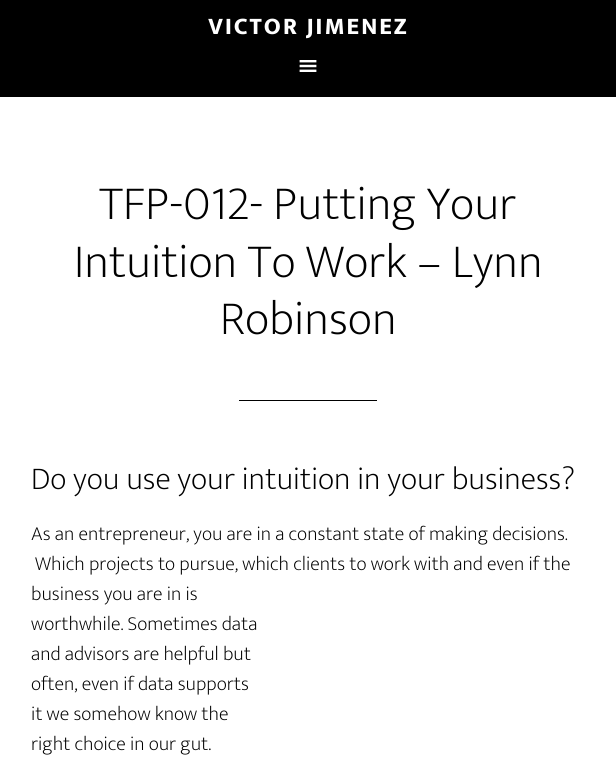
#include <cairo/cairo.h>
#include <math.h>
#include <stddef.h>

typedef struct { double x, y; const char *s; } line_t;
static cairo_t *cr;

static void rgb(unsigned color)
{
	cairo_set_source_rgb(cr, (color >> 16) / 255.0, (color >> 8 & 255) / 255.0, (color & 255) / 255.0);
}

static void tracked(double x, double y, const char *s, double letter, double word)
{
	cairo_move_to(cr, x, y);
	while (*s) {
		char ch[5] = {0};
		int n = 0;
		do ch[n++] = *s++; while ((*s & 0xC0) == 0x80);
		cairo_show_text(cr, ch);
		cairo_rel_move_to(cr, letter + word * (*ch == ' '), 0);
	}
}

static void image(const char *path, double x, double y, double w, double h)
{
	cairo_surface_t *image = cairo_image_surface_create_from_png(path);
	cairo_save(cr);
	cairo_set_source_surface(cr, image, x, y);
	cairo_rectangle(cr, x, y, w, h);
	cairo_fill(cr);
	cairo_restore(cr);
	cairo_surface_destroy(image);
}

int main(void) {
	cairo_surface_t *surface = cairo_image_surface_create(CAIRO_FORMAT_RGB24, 616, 784);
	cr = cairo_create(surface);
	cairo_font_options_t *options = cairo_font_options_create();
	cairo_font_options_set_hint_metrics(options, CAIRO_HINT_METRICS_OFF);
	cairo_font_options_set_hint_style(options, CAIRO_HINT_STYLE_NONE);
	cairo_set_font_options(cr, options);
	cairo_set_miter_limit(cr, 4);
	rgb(0xffffff);
	cairo_paint(cr);
	rgb(0x000000);
	cairo_rectangle(cr, 0, 0, 616, 97);
	cairo_fill(cr);
	image("img/1.png", 299, 60, 18, 12);
	cairo_rectangle(cr, 239, 400, 138, 1);
	cairo_fill(cr);
	cairo_select_font_face(cr, "Ek Mukta ExtraBold", CAIRO_FONT_SLANT_NORMAL, CAIRO_FONT_WEIGHT_NORMAL);
	cairo_set_font_size(cr, 24);
	rgb(0xffffff);
	tracked(208, 34, "VICTOR JIMENEZ", 2, 0);
	cairo_select_font_face(cr, "Ek Mukta ExtraLight", CAIRO_FONT_SLANT_NORMAL, CAIRO_FONT_WEIGHT_NORMAL);
	cairo_set_font_size(cr, 48);
	rgb(0x000000);
	{
		static const line_t items[] = {
			{99, 219, "TFP-012- Putting Your"},
			{74, 277, "Intuition To Work – Lynn"},
			{220, 334, "Robinson"},
		};
		for (size_t i = 0; i < sizeof items / sizeof *items; i++) {
			cairo_move_to(cr, items[i].x, items[i].y);
			cairo_show_text(cr, items[i].s);
		}
	}
	cairo_set_font_size(cr, 32);
	cairo_move_to(cr, 31, 489);
	cairo_show_text(cr, "Do you use your intuition in your business?");
	cairo_set_font_size(cr, 20);
	{
		static const line_t items[] = {
			{31, 540, "As an entrepreneur, you are in a constant state of making decisions."},
			{35, 570, "Which projects to pursue, which clients to work with and even if the"},
			{31, 600, "business you are in is"},
			{31, 630, "worthwhile. Sometimes data"},
			{31, 660, "and advisors are helpful but"},
			{31, 690, "often, even if data supports"},
			{31, 720, "it we somehow know the"},
			{31, 750, "right choice in our gut."},
		};
		for (size_t i = 0; i < sizeof items / sizeof *items; i++) {
			cairo_move_to(cr, items[i].x, items[i].y);
			cairo_show_text(cr, items[i].s);
		}
	}
	cairo_surface_write_to_png(surface, "page.png");
	cairo_font_options_destroy(options);
	cairo_destroy(cr);
	cairo_surface_destroy(surface);
	return 0;
}
